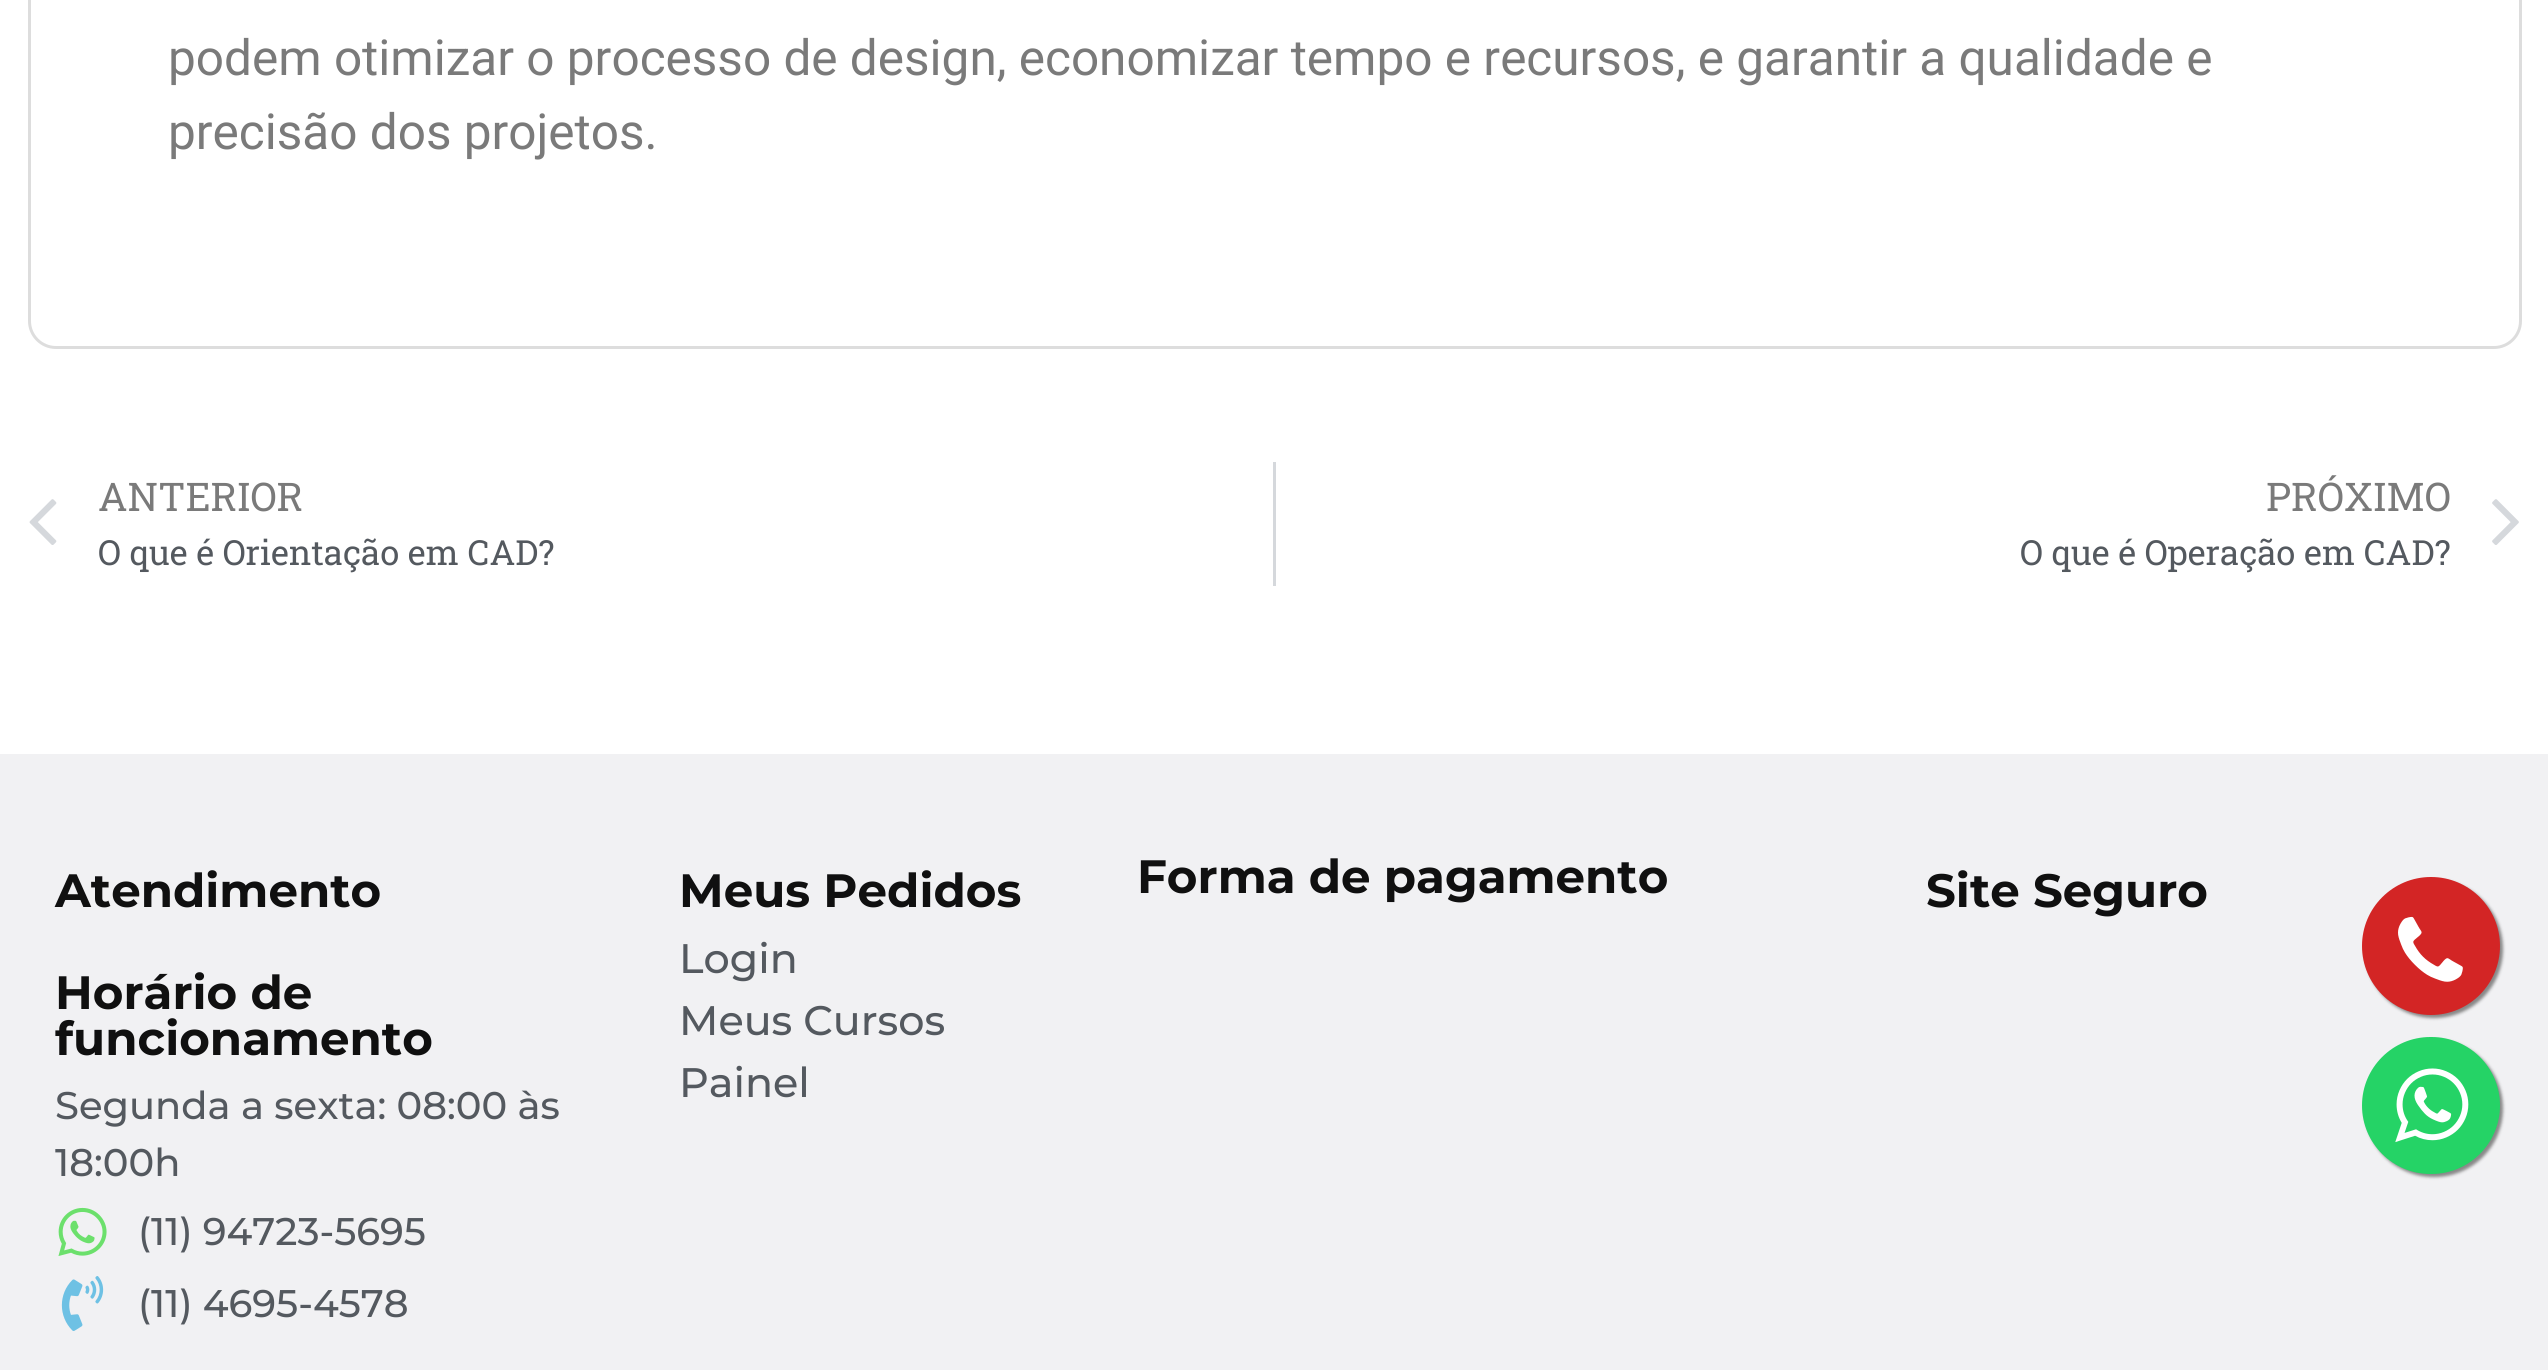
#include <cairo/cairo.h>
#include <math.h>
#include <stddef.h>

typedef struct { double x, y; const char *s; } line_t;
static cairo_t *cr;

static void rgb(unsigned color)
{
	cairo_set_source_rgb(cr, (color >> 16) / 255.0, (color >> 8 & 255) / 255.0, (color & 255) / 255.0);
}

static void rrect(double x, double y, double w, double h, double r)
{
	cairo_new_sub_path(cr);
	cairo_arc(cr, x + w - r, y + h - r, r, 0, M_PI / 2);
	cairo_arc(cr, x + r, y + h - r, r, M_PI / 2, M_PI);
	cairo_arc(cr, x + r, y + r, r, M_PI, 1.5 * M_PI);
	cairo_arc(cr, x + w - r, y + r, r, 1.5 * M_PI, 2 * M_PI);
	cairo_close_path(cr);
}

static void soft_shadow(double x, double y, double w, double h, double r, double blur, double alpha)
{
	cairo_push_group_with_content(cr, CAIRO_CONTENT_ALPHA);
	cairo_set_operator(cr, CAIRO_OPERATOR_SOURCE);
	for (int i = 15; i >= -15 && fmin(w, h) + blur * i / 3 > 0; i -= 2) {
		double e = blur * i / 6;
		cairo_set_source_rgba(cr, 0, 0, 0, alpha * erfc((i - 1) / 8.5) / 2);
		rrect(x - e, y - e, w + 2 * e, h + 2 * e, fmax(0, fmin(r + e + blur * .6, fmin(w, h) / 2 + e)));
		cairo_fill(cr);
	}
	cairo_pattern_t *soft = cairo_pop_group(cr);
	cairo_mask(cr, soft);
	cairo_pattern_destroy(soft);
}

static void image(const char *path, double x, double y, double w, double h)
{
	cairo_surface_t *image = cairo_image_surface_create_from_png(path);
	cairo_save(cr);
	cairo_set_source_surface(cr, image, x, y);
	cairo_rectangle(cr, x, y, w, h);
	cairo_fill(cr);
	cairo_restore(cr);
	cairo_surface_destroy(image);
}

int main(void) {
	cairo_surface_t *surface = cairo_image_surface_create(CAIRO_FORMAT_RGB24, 2548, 1370);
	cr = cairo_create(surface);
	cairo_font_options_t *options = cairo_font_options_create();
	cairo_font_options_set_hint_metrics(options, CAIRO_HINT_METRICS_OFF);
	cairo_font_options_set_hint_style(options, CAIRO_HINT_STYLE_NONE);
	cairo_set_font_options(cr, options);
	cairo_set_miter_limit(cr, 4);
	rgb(0xffffff);
	cairo_paint(cr);
	rrect(29.5, -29.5, 2491, 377, 26.5);
	rgb(0xdddddd);
	cairo_set_line_width(cr, 3);
	cairo_stroke(cr);
	image("img/1.png", 29, 499, 28, 46);
	rgb(0xd5d8dc);
	cairo_rectangle(cr, 1273, 462, 3, 124);
	cairo_fill(cr);
	image("img/2.png", 2492, 499, 27, 46);
	rgb(0xf1f1f3);
	cairo_rectangle(cr, 0, 754, 2548, 616);
	cairo_fill(cr);
	image("img/3.png", 58, 1207, 49, 49);
	image("img/4.png", 61, 1276, 43, 55);
	rgb(0x888888);
	soft_shadow(2365, 880, 138, 138, 69, 1.5, 1);
	rgb(0xd32525);
	cairo_arc(cr, 2431, 946, 69, 0, 2 * M_PI);
	cairo_fill(cr);
	image("img/5.png", 2398, 916, 65, 66);
	rgb(0x888888);
	soft_shadow(2365, 1040, 138, 137, 68.5, 1.5, 1);
	rgb(0x25d366);
	rrect(2362, 1037, 138, 137, 68.5);
	cairo_fill(cr);
	image("img/6.png", 2395, 1068, 74, 75);
	cairo_select_font_face(cr, "Roboto", CAIRO_FONT_SLANT_NORMAL, CAIRO_FONT_WEIGHT_NORMAL);
	cairo_set_font_size(cr, 49.5);
	rgb(0x7a7a7a);
	cairo_move_to(cr, 168, 75);
	cairo_show_text(cr, "podem otimizar o processo de design, economizar tempo e recursos, e garantir a qualidade e");
	cairo_move_to(cr, 168, 149);
	cairo_show_text(cr, "precisão dos projetos.");
	cairo_select_font_face(cr, "Roboto Slab", CAIRO_FONT_SLANT_NORMAL, CAIRO_FONT_WEIGHT_NORMAL);
	cairo_set_font_size(cr, 39.5);
	cairo_move_to(cr, 98, 511);
	cairo_show_text(cr, "ANTERIOR");
	cairo_set_font_size(cr, 34.6);
	rgb(0x54595f);
	cairo_move_to(cr, 98, 565);
	cairo_show_text(cr, "O que é Orientação em CAD?");
	cairo_set_font_size(cr, 39.5);
	rgb(0x7a7a7a);
	cairo_move_to(cr, 2266, 511);
	cairo_show_text(cr, "PRÓXIMO");
	cairo_set_font_size(cr, 34.6);
	rgb(0x54595f);
	cairo_move_to(cr, 2020, 565);
	cairo_show_text(cr, "O que é Operação em CAD?");
	cairo_select_font_face(cr, "Montserrat", CAIRO_FONT_SLANT_NORMAL, CAIRO_FONT_WEIGHT_BOLD);
	cairo_set_font_size(cr, 46.75);
	rgb(0x101010);
	{
		static const line_t items[] = {
			{55, 907, "Atendimento"},
			{55, 1009, "Horário de"},
			{55, 1055, "funcionamento"},
		};
		for (size_t i = 0; i < sizeof items / sizeof *items; i++) {
			cairo_move_to(cr, items[i].x, items[i].y);
			cairo_show_text(cr, items[i].s);
		}
	}
	cairo_select_font_face(cr, "Montserrat Medium", CAIRO_FONT_SLANT_NORMAL, CAIRO_FONT_WEIGHT_NORMAL);
	cairo_set_font_size(cr, 38.5);
	rgb(0x54595f);
	{
		static const line_t items[] = {
			{55, 1119, "Segunda a sexta: 08:00 às"},
			{55, 1176, "18:00h"},
			{138, 1245, "(11) 94723-5695"},
			{138, 1317, "(11) 4695-4578"},
		};
		for (size_t i = 0; i < sizeof items / sizeof *items; i++) {
			cairo_move_to(cr, items[i].x, items[i].y);
			cairo_show_text(cr, items[i].s);
		}
	}
	cairo_select_font_face(cr, "Montserrat", CAIRO_FONT_SLANT_NORMAL, CAIRO_FONT_WEIGHT_BOLD);
	cairo_set_font_size(cr, 46.75);
	rgb(0x101010);
	cairo_move_to(cr, 679, 907);
	cairo_show_text(cr, "Meus Pedidos");
	cairo_select_font_face(cr, "Montserrat Medium", CAIRO_FONT_SLANT_NORMAL, CAIRO_FONT_WEIGHT_NORMAL);
	cairo_set_font_size(cr, 41.25);
	rgb(0x54595f);
	{
		static const line_t items[] = {
			{679, 973, "Login"},
			{679, 1035, "Meus Cursos"},
			{679, 1097, "Painel"},
		};
		for (size_t i = 0; i < sizeof items / sizeof *items; i++) {
			cairo_move_to(cr, items[i].x, items[i].y);
			cairo_show_text(cr, items[i].s);
		}
	}
	cairo_select_font_face(cr, "Montserrat", CAIRO_FONT_SLANT_NORMAL, CAIRO_FONT_WEIGHT_BOLD);
	cairo_set_font_size(cr, 46.75);
	rgb(0x101010);
	cairo_move_to(cr, 1137, 893);
	cairo_show_text(cr, "Forma de pagamento");
	cairo_move_to(cr, 1926, 907);
	cairo_show_text(cr, "Site Seguro");
	cairo_surface_write_to_png(surface, "page.png");
	cairo_font_options_destroy(options);
	cairo_destroy(cr);
	cairo_surface_destroy(surface);
	return 0;
}
